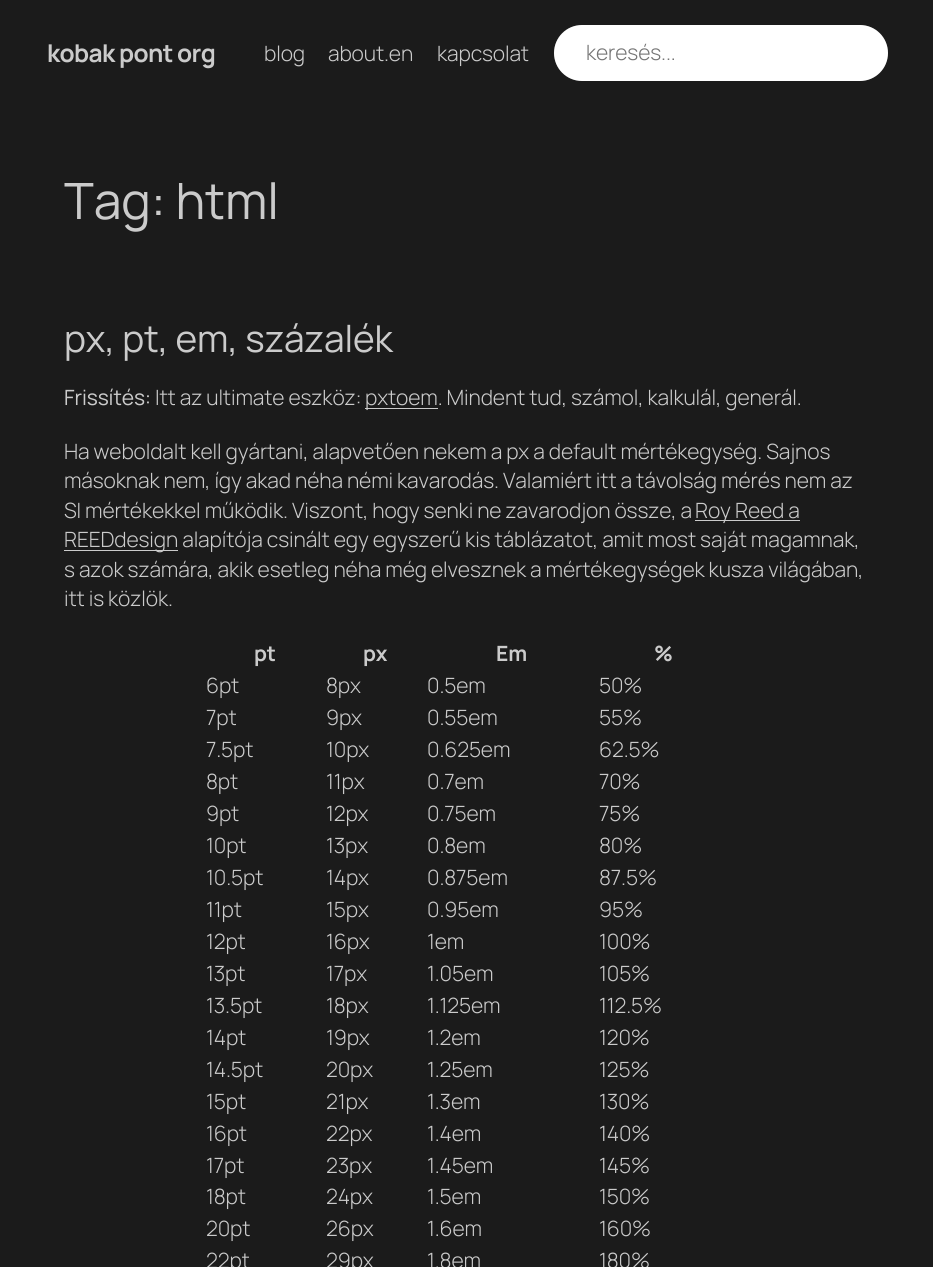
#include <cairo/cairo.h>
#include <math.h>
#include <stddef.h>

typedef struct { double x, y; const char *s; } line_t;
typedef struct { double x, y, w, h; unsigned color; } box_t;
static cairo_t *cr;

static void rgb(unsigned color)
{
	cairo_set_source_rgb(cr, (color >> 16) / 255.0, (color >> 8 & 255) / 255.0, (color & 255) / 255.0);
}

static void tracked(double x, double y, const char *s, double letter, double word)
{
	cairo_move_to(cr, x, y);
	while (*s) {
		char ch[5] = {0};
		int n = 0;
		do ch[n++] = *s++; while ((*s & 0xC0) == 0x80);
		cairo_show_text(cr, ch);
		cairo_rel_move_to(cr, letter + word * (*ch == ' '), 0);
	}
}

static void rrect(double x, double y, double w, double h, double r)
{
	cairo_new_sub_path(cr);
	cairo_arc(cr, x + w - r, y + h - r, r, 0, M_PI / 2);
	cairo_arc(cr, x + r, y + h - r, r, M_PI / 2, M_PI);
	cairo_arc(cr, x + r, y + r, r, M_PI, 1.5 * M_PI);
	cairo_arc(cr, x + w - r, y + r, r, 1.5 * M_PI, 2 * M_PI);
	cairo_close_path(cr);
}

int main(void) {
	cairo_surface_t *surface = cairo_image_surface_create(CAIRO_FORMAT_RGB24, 933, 1267);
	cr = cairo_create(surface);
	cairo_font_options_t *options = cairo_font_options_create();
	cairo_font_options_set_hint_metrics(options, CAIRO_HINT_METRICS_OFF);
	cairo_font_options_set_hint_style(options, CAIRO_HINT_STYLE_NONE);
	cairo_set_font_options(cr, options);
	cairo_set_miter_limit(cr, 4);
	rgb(0x1b1b1b);
	cairo_paint(cr);
	rgb(0xffffff);
	rrect(554, 25, 334, 56, 28);
	cairo_fill(cr);
	rrect(554.5, 25.5, 333, 55, 27.5);
	cairo_set_source_rgba(cr, 1, 1, 1, 0.2);
	cairo_set_line_width(cr, 1);
	cairo_stroke(cr);
	{
		static const box_t items[] = {
			{365, 408, 73, 1, 0xcbcbcb},
			{695, 520, 105, 1, 0xcbcbcb},
			{64, 550, 114, 1, 0xcbcbcb},
		};
		for (size_t i = 0; i < sizeof items / sizeof *items; i++) {
			rgb(items[i].color);
			cairo_rectangle(cr, items[i].x, items[i].y, items[i].w, items[i].h);
			cairo_fill(cr);
		}
	}
	cairo_select_font_face(cr, "Manrope", CAIRO_FONT_SLANT_NORMAL, CAIRO_FONT_WEIGHT_BOLD);
	cairo_set_font_size(cr, 24.5);
	tracked(47, 62, "kobak pont org", -0.6, 0);
	cairo_select_font_face(cr, "Manrope Light", CAIRO_FONT_SLANT_NORMAL, CAIRO_FONT_WEIGHT_NORMAL);
	cairo_set_font_size(cr, 21.05);
	{
		static const line_t items[] = {
			{264, 61, "blog"},
			{328, 61, "about.en"},
			{437, 61, "kapcsolat"},
		};
		for (size_t i = 0; i < sizeof items / sizeof *items; i++) {
			tracked(items[i].x, items[i].y, items[i].s, -0.12, 0);
		}
	}
	rgb(0x757575);
	tracked(586, 60, "keresés...", -0.12, 0);
	cairo_select_font_face(cr, "Manrope", CAIRO_FONT_SLANT_NORMAL, CAIRO_FONT_WEIGHT_NORMAL);
	cairo_set_font_size(cr, 50);
	rgb(0xcbcbcb);
	tracked(64, 219, "Tag: html", -0.12, 0);
	cairo_set_font_size(cr, 37);
	tracked(64, 352, "px, pt, em, százalék", -0.12, 0);
	cairo_set_font_size(cr, 21.05);
	tracked(64, 405, "Frissítés:", -0.12, 0);
	cairo_select_font_face(cr, "Manrope Light", CAIRO_FONT_SLANT_NORMAL, CAIRO_FONT_WEIGHT_NORMAL);
	{
		static const line_t items[] = {
			{155, 405, "Itt az ultimate eszköz:"},
			{365, 405, "pxtoem. Mindent tud, számol, kalkulál, generál."},
			{64, 459, "Ha weboldalt kell gyártani, alapvetően nekem a px a default mértékegység. Sajnos"},
			{64, 488, "másoknak nem, így akad néha némi kavarodás. Valamiért itt a távolság mérés nem az"},
			{64, 518, "SI mértékekkel működik. Viszont, hogy senki ne zavarodjon össze, a"},
			{695, 518, "Roy Reed a"},
			{64, 547, "REEDdesign alapítója csinált egy egyszerű kis táblázatot, amit most saját magamnak,"},
			{64, 577, "s azok számára, akik esetleg néha még elvesznek a mértékegységek kusza világában,"},
			{64, 606, "itt is közlök."},
		};
		for (size_t i = 0; i < sizeof items / sizeof *items; i++) {
			tracked(items[i].x, items[i].y, items[i].s, -0.12, 0);
		}
	}
	cairo_select_font_face(cr, "Manrope", CAIRO_FONT_SLANT_NORMAL, CAIRO_FONT_WEIGHT_BOLD);
	{
		static const line_t items[] = {
			{254, 661, "pt"},
			{363, 661, "px"},
			{496, 661, "Em"},
			{654, 661, "%"},
		};
		for (size_t i = 0; i < sizeof items / sizeof *items; i++) {
			tracked(items[i].x, items[i].y, items[i].s, -0.12, 0);
		}
	}
	cairo_select_font_face(cr, "Manrope Light", CAIRO_FONT_SLANT_NORMAL, CAIRO_FONT_WEIGHT_NORMAL);
	{
		static const line_t items[] = {
			{206, 693, "6pt"},
			{326, 693, "8px"},
			{427, 693, "0.5em"},
			{599, 693, "50%"},
			{206, 725, "7pt"},
			{326, 725, "9px"},
			{427, 725, "0.55em"},
			{599, 725, "55%"},
			{206, 757, "7.5pt"},
			{326, 757, "10px"},
			{427, 757, "0.625em"},
			{599, 757, "62.5%"},
			{206, 789, "8pt"},
			{326, 789, "11px"},
			{427, 789, "0.7em"},
			{599, 789, "70%"},
			{206, 821, "9pt"},
			{326, 821, "12px"},
			{427, 821, "0.75em"},
			{599, 821, "75%"},
			{206, 853, "10pt"},
			{326, 853, "13px"},
			{427, 853, "0.8em"},
			{599, 853, "80%"},
			{206, 885, "10.5pt"},
			{326, 885, "14px"},
			{427, 885, "0.875em"},
			{599, 885, "87.5%"},
			{206, 917, "11pt"},
			{326, 917, "15px"},
			{427, 917, "0.95em"},
			{599, 917, "95%"},
			{206, 949, "12pt"},
			{326, 949, "16px"},
			{427, 949, "1em"},
			{599, 949, "100%"},
			{206, 981, "13pt"},
			{326, 981, "17px"},
			{427, 981, "1.05em"},
			{599, 981, "105%"},
			{206, 1013, "13.5pt"},
			{326, 1013, "18px"},
			{427, 1013, "1.125em"},
			{599, 1013, "112.5%"},
			{206, 1045, "14pt"},
			{326, 1045, "19px"},
			{427, 1045, "1.2em"},
			{599, 1045, "120%"},
			{206, 1077, "14.5pt"},
			{326, 1077, "20px"},
			{427, 1077, "1.25em"},
			{599, 1077, "125%"},
			{206, 1109, "15pt"},
			{326, 1109, "21px"},
			{427, 1109, "1.3em"},
			{599, 1109, "130%"},
			{206, 1141, "16pt"},
			{326, 1141, "22px"},
			{427, 1141, "1.4em"},
			{599, 1141, "140%"},
			{206, 1173, "17pt"},
			{326, 1173, "23px"},
			{427, 1173, "1.45em"},
			{599, 1173, "145%"},
			{206, 1204, "18pt"},
			{326, 1204, "24px"},
			{427, 1204, "1.5em"},
			{599, 1204, "150%"},
			{206, 1236, "20pt"},
			{326, 1236, "26px"},
			{427, 1236, "1.6em"},
			{599, 1236, "160%"},
			{206, 1268, "22pt"},
			{326, 1268, "29px"},
			{427, 1268, "1.8em"},
			{599, 1268, "180%"},
		};
		for (size_t i = 0; i < sizeof items / sizeof *items; i++) {
			tracked(items[i].x, items[i].y, items[i].s, -0.12, 0);
		}
	}
	cairo_surface_write_to_png(surface, "page.png");
	cairo_font_options_destroy(options);
	cairo_destroy(cr);
	cairo_surface_destroy(surface);
	return 0;
}
